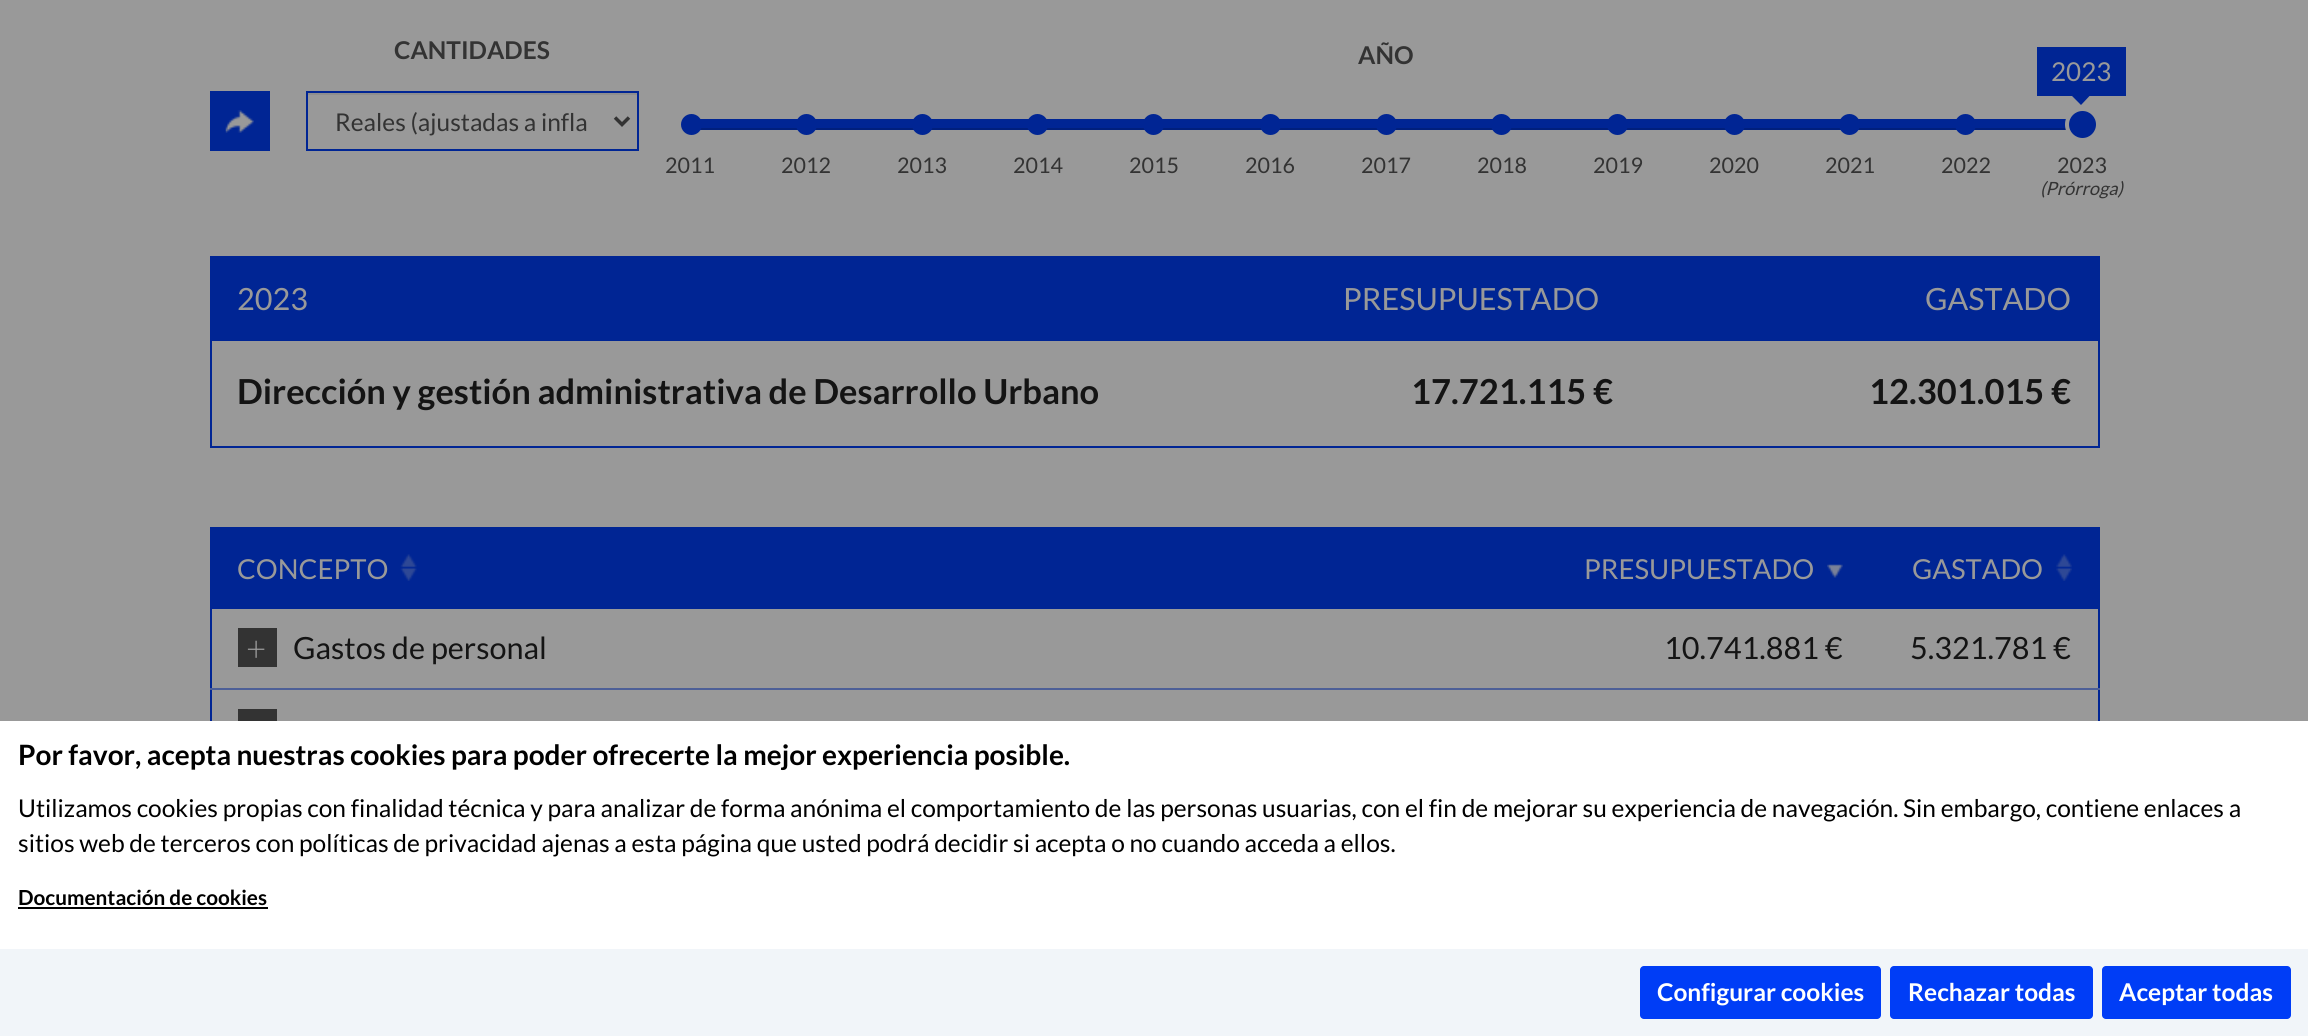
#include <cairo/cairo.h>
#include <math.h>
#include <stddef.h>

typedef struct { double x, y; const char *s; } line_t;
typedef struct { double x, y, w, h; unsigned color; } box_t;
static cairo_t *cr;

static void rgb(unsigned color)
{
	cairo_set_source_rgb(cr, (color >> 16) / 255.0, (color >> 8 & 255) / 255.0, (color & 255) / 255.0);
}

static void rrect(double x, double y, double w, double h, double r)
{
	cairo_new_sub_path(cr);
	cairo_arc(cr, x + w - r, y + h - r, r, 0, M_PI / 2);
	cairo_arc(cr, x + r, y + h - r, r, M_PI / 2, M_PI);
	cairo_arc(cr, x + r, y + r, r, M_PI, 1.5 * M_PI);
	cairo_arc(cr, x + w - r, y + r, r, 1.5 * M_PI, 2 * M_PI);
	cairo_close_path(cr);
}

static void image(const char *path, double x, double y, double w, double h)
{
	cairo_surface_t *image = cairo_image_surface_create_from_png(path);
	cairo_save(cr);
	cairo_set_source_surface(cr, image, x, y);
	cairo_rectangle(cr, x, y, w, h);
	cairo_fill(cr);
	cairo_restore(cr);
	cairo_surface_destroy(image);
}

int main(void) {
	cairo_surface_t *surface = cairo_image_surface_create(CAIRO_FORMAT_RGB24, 2308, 1036);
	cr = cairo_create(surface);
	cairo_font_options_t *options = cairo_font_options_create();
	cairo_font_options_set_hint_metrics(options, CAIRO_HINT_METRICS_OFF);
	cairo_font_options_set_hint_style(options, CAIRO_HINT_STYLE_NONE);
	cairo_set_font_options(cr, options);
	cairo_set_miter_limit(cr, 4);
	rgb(0x999999);
	cairo_paint(cr);
	rgb(0x002594);
	cairo_rectangle(cr, 210, 91, 60, 60);
	cairo_fill(cr);
	image("img/1.png", 225, 110, 29, 23);
	rgb(0x8e8e8e);
	cairo_rectangle(cr, 308, 93, 329, 2);
	cairo_fill(cr);
	cairo_rectangle(cr, 307, 92, 331, 58);
	rgb(0x002594);
	cairo_stroke(cr);
	cairo_new_path(cr);
	cairo_move_to(cr, 615, 117.5);
	cairo_line_to(cr, 622, 124.5);
	cairo_line_to(cr, 629, 117.5);
	rgb(0x333333);
	cairo_set_line_width(cr, 3.5);
	cairo_stroke(cr);
	rgb(0x002594);
	cairo_rectangle(cr, 2037, 47, 89, 49);
	cairo_fill(cr);
	cairo_new_path(cr);
	cairo_move_to(cr, 2072, 96);
	cairo_line_to(cr, 2089.5, 96);
	cairo_line_to(cr, 2081, 105);
	cairo_close_path(cr);
	cairo_fill(cr);
	cairo_rectangle(cr, 700, 119, 1366, 9);
	cairo_fill(cr);
	rgb(0x001f7d);
	cairo_rectangle(cr, 700, 128, 1366, 2);
	cairo_fill(cr);
	rgb(0x002594);
	cairo_arc(cr, 691.5, 124.5, 10.5, 0, 2 * M_PI);
	cairo_fill(cr);
	cairo_arc(cr, 806.5, 124.5, 10.5, 0, 2 * M_PI);
	cairo_fill(cr);
	cairo_arc(cr, 922.5, 124.5, 10.5, 0, 2 * M_PI);
	cairo_fill(cr);
	cairo_arc(cr, 1037.5, 124.5, 10.5, 0, 2 * M_PI);
	cairo_fill(cr);
	cairo_arc(cr, 1153.5, 124.5, 10.5, 0, 2 * M_PI);
	cairo_fill(cr);
	cairo_arc(cr, 1270.5, 124.5, 10.5, 0, 2 * M_PI);
	cairo_fill(cr);
	cairo_arc(cr, 1386.5, 124.5, 10.5, 0, 2 * M_PI);
	cairo_fill(cr);
	cairo_arc(cr, 1501.5, 124.5, 10.5, 0, 2 * M_PI);
	cairo_fill(cr);
	cairo_arc(cr, 1617.5, 124.5, 10.5, 0, 2 * M_PI);
	cairo_fill(cr);
	cairo_arc(cr, 1734.5, 124.5, 10.5, 0, 2 * M_PI);
	cairo_fill(cr);
	cairo_arc(cr, 1849.5, 124.5, 10.5, 0, 2 * M_PI);
	cairo_fill(cr);
	cairo_arc(cr, 1965.5, 124.5, 10.5, 0, 2 * M_PI);
	cairo_fill(cr);
	cairo_arc(cr, 2082.5, 124.5, 15.5, 0, 2 * M_PI);
	cairo_fill_preserve(cr);
	rgb(0x999999);
	cairo_set_line_width(cr, 4);
	cairo_stroke(cr);
	cairo_rectangle(cr, 211, 257, 1888, 190);
	rgb(0x002594);
	cairo_set_line_width(cr, 2);
	cairo_stroke(cr);
	{
		static const box_t items[] = {
			{212, 258, 1886, 83, 0x002594},
			{2098, 527, 2, 194, 0x002594},
			{210, 527, 2, 194, 0x002594},
			{212, 527, 1886, 82, 0x002594},
		};
		for (size_t i = 0; i < sizeof items / sizeof *items; i++) {
			rgb(items[i].color);
			cairo_rectangle(cr, items[i].x, items[i].y, items[i].w, items[i].h);
			cairo_fill(cr);
		}
	}
	image("img/2.png", 400, 554, 17, 27);
	image("img/3.png", 1827, 564, 16, 14);
	image("img/4.png", 2056, 554, 16, 27);
	{
		static const box_t items[] = {
			{238, 628, 39, 39, 0x333333},
			{210, 688, 1890, 2, 0x4d5f97},
			{238, 709, 39, 12, 0x333333},
			{0, 721, 2308, 228, 0xffffff},
			{18, 907, 250, 2, 0x000000},
			{0, 949, 2308, 87, 0xf1f5f9},
		};
		for (size_t i = 0; i < sizeof items / sizeof *items; i++) {
			rgb(items[i].color);
			cairo_rectangle(cr, items[i].x, items[i].y, items[i].w, items[i].h);
			cairo_fill(cr);
		}
	}
	rgb(0x003df6);
	rrect(1640, 966, 241, 53, 4);
	cairo_fill(cr);
	rrect(1890, 966, 203, 53, 4);
	cairo_fill(cr);
	rrect(2102, 966, 189, 53, 4);
	cairo_fill(cr);
	cairo_select_font_face(cr, "Lato", CAIRO_FONT_SLANT_NORMAL, CAIRO_FONT_WEIGHT_BOLD);
	cairo_set_font_size(cr, 24.5);
	rgb(0x333333);
	cairo_move_to(cr, 394, 59);
	cairo_show_text(cr, "CANTIDADES");
	cairo_select_font_face(cr, "Lato", CAIRO_FONT_SLANT_NORMAL, CAIRO_FONT_WEIGHT_NORMAL);
	cairo_move_to(cr, 335, 131);
	cairo_show_text(cr, "Reales (ajustadas a infla");
	cairo_select_font_face(cr, "Lato", CAIRO_FONT_SLANT_NORMAL, CAIRO_FONT_WEIGHT_BOLD);
	cairo_move_to(cr, 1358, 64);
	cairo_show_text(cr, "AÑO");
	cairo_select_font_face(cr, "Lato", CAIRO_FONT_SLANT_NORMAL, CAIRO_FONT_WEIGHT_NORMAL);
	cairo_set_font_size(cr, 26);
	rgb(0x999999);
	cairo_move_to(cr, 2051, 81);
	cairo_show_text(cr, "2023");
	cairo_set_font_size(cr, 21.5);
	rgb(0x333333);
	{
		static const line_t items[] = {
			{665, 173, "2011"},
			{781, 173, "2012"},
			{897, 173, "2013"},
			{1013, 173, "2014"},
			{1129, 173, "2015"},
			{1245, 173, "2016"},
			{1361, 173, "2017"},
			{1477, 173, "2018"},
			{1593, 173, "2019"},
			{1709, 173, "2020"},
			{1825, 173, "2021"},
			{1941, 173, "2022"},
			{2057, 173, "2023"},
		};
		for (size_t i = 0; i < sizeof items / sizeof *items; i++) {
			cairo_move_to(cr, items[i].x, items[i].y);
			cairo_show_text(cr, items[i].s);
		}
	}
	cairo_select_font_face(cr, "Lato", CAIRO_FONT_SLANT_ITALIC, CAIRO_FONT_WEIGHT_NORMAL);
	cairo_set_font_size(cr, 18.25);
	cairo_move_to(cr, 2040, 195);
	cairo_show_text(cr, "(Prórroga)");
	cairo_select_font_face(cr, "Lato", CAIRO_FONT_SLANT_NORMAL, CAIRO_FONT_WEIGHT_NORMAL);
	cairo_set_font_size(cr, 30.6);
	rgb(0x999999);
	{
		static const line_t items[] = {
			{237, 310, "2023"},
			{1343, 310, "PRESUPUESTADO"},
			{1925, 310, "GASTADO"},
		};
		for (size_t i = 0; i < sizeof items / sizeof *items; i++) {
			cairo_move_to(cr, items[i].x, items[i].y);
			cairo_show_text(cr, items[i].s);
		}
	}
	cairo_select_font_face(cr, "Lato", CAIRO_FONT_SLANT_NORMAL, CAIRO_FONT_WEIGHT_BOLD);
	cairo_set_font_size(cr, 34.45);
	rgb(0x141414);
	{
		static const line_t items[] = {
			{237, 404, "Dirección y gestión administrativa de Desarrollo Urbano"},
			{1411, 404, "17.721.115 €"},
			{1869, 404, "12.301.015 €"},
		};
		for (size_t i = 0; i < sizeof items / sizeof *items; i++) {
			cairo_move_to(cr, items[i].x, items[i].y);
			cairo_show_text(cr, items[i].s);
		}
	}
	cairo_select_font_face(cr, "Lato", CAIRO_FONT_SLANT_NORMAL, CAIRO_FONT_WEIGHT_NORMAL);
	cairo_set_font_size(cr, 27.5);
	rgb(0x999999);
	{
		static const line_t items[] = {
			{237, 579, "CONCEPTO"},
			{1584, 579, "PRESUPUESTADO"},
			{1912, 579, "GASTADO"},
		};
		for (size_t i = 0; i < sizeof items / sizeof *items; i++) {
			cairo_move_to(cr, items[i].x, items[i].y);
			cairo_show_text(cr, items[i].s);
		}
	}
	cairo_select_font_face(cr, "Lato Light", CAIRO_FONT_SLANT_NORMAL, CAIRO_FONT_WEIGHT_NORMAL);
	cairo_set_font_size(cr, 35);
	cairo_move_to(cr, 246, 661);
	cairo_show_text(cr, "+");
	cairo_select_font_face(cr, "Lato", CAIRO_FONT_SLANT_NORMAL, CAIRO_FONT_WEIGHT_NORMAL);
	cairo_set_font_size(cr, 30.6);
	rgb(0x141414);
	{
		static const line_t items[] = {
			{293, 659, "Gastos de personal"},
			{1664, 659, "10.741.881 €"},
			{1910, 659, "5.321.781 €"},
		};
		for (size_t i = 0; i < sizeof items / sizeof *items; i++) {
			cairo_move_to(cr, items[i].x, items[i].y);
			cairo_show_text(cr, items[i].s);
		}
	}
	cairo_select_font_face(cr, "Lato", CAIRO_FONT_SLANT_NORMAL, CAIRO_FONT_WEIGHT_BOLD);
	cairo_set_font_size(cr, 28);
	rgb(0x000000);
	cairo_move_to(cr, 18, 765);
	cairo_show_text(cr, "Por favor, acepta nuestras cookies para poder ofrecerte la mejor experiencia posible.");
	cairo_select_font_face(cr, "Lato", CAIRO_FONT_SLANT_NORMAL, CAIRO_FONT_WEIGHT_NORMAL);
	cairo_set_font_size(cr, 24.5);
	cairo_move_to(cr, 18, 817);
	cairo_show_text(cr, "Utilizamos cookies propias con finalidad técnica y para analizar de forma anónima el comportamiento de las personas usuarias, con el fin de mejorar su experiencia de navegación. Sin embargo, contiene enlaces a");
	cairo_move_to(cr, 18, 852);
	cairo_show_text(cr, "sitios web de terceros con políticas de privacidad ajenas a esta página que usted podrá decidir si acepta o no cuando acceda a ellos.");
	cairo_select_font_face(cr, "Lato", CAIRO_FONT_SLANT_NORMAL, CAIRO_FONT_WEIGHT_BOLD);
	cairo_set_font_size(cr, 20.75);
	cairo_move_to(cr, 18, 905);
	cairo_show_text(cr, "Documentación de cookies");
	cairo_set_font_size(cr, 24.5);
	rgb(0xffffff);
	{
		static const line_t items[] = {
			{1657, 1001, "Configurar cookies"},
			{1908, 1001, "Rechazar todas"},
			{2119, 1001, "Aceptar todas"},
		};
		for (size_t i = 0; i < sizeof items / sizeof *items; i++) {
			cairo_move_to(cr, items[i].x, items[i].y);
			cairo_show_text(cr, items[i].s);
		}
	}
	cairo_surface_write_to_png(surface, "page.png");
	cairo_font_options_destroy(options);
	cairo_destroy(cr);
	cairo_surface_destroy(surface);
	return 0;
}
